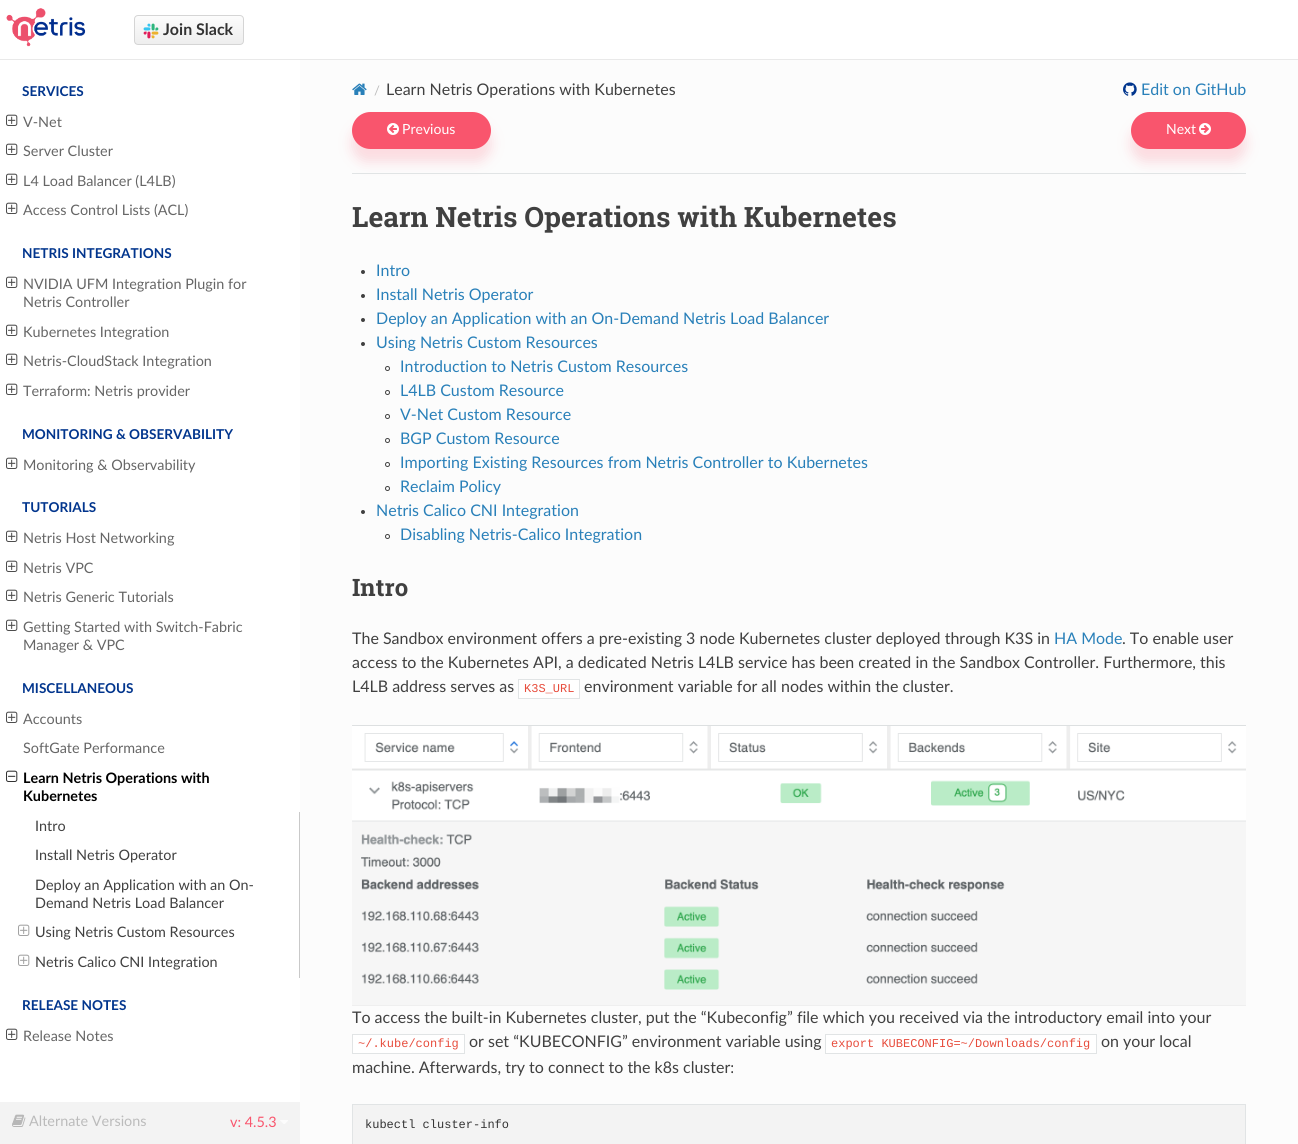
#include <cairo/cairo.h>
#include <math.h>
#include <stddef.h>

typedef struct { double x, y; const char *s; } line_t;
typedef struct { double x, y, w, h; unsigned color; } box_t;
static cairo_t *cr;

static void rgb(unsigned color)
{
	cairo_set_source_rgb(cr, (color >> 16) / 255.0, (color >> 8 & 255) / 255.0, (color & 255) / 255.0);
}

static void rrect(double x, double y, double w, double h, double r)
{
	cairo_new_sub_path(cr);
	cairo_arc(cr, x + w - r, y + h - r, r, 0, M_PI / 2);
	cairo_arc(cr, x + r, y + h - r, r, M_PI / 2, M_PI);
	cairo_arc(cr, x + r, y + r, r, M_PI, 1.5 * M_PI);
	cairo_arc(cr, x + w - r, y + r, r, 1.5 * M_PI, 2 * M_PI);
	cairo_close_path(cr);
}

static void soft_shadow(double x, double y, double w, double h, double r, double blur, double alpha)
{
	cairo_push_group_with_content(cr, CAIRO_CONTENT_ALPHA);
	cairo_set_operator(cr, CAIRO_OPERATOR_SOURCE);
	for (int i = 15; i >= -15 && fmin(w, h) + blur * i / 3 > 0; i -= 2) {
		double e = blur * i / 6;
		cairo_set_source_rgba(cr, 0, 0, 0, alpha * erfc((i - 1) / 8.5) / 2);
		rrect(x - e, y - e, w + 2 * e, h + 2 * e, fmax(0, fmin(r + e + blur * .6, fmin(w, h) / 2 + e)));
		cairo_fill(cr);
	}
	cairo_pattern_t *soft = cairo_pop_group(cr);
	cairo_mask(cr, soft);
	cairo_pattern_destroy(soft);
}

static void image(const char *path, double x, double y, double w, double h)
{
	cairo_surface_t *image = cairo_image_surface_create_from_png(path);
	cairo_save(cr);
	cairo_set_source_surface(cr, image, x, y);
	cairo_rectangle(cr, x, y, w, h);
	cairo_fill(cr);
	cairo_restore(cr);
	cairo_surface_destroy(image);
}

int main(void) {
	cairo_surface_t *surface = cairo_image_surface_create(CAIRO_FORMAT_RGB24, 1298, 1144);
	cr = cairo_create(surface);
	cairo_font_options_t *options = cairo_font_options_create();
	cairo_font_options_set_hint_metrics(options, CAIRO_HINT_METRICS_OFF);
	cairo_font_options_set_hint_style(options, CAIRO_HINT_STYLE_NONE);
	cairo_set_font_options(cr, options);
	cairo_set_miter_limit(cr, 4);
	cairo_pattern_t *gradient;
	rgb(0xfcfcfc);
	cairo_paint(cr);
	rgb(0xffffff);
	cairo_rectangle(cr, 0, 0, 1298, 59);
	cairo_fill(cr);
	rgb(0xe9e9e9);
	cairo_rectangle(cr, 0, 59, 1298, 1);
	cairo_fill(cr);
	image("img/1.png", 6, 8, 80, 39);
	cairo_save(cr);
	rrect(134, 15, 110, 30, 4);
	cairo_clip(cr);
	gradient = cairo_pattern_create_linear(189, 16, 189, 44);
	cairo_pattern_add_color_stop_rgba(gradient, 0, 0.988, 0.988, 0.988, 1);
	cairo_pattern_add_color_stop_rgba(gradient, 1, 0.933, 0.933, 0.933, 1);
	cairo_set_source(cr, gradient);
	cairo_pattern_destroy(gradient);
	cairo_rectangle(cr, 135, 16, 108, 28);
	cairo_fill(cr);
	cairo_restore(cr);
	rrect(134.5, 15.5, 109, 29, 3.5);
	rgb(0xd5d5d5);
	cairo_set_line_width(cr, 1);
	cairo_stroke(cr);
	image("img/2.png", 143, 23, 16, 16);
	rgb(0xffffff);
	cairo_rectangle(cr, 0, 60, 300, 1042);
	cairo_fill(cr);
	image("img/3.png", 6, 114, 12, 12);
	image("img/3.png", 6, 143, 12, 12);
	image("img/3.png", 6, 173, 12, 12);
	image("img/3.png", 6, 202, 12, 12);
	image("img/3.png", 6, 276, 12, 12);
	image("img/3.png", 6, 324, 12, 12);
	image("img/3.png", 6, 353, 12, 12);
	image("img/3.png", 6, 383, 12, 12);
	image("img/3.png", 6, 457, 12, 12);
	image("img/3.png", 6, 530, 12, 12);
	image("img/3.png", 6, 560, 12, 12);
	image("img/3.png", 6, 589, 12, 12);
	image("img/3.png", 6, 619, 12, 12);
	image("img/3.png", 6, 711, 12, 12);
	image("img/4.png", 6, 770, 12, 12);
	rgb(0xc9c9c9);
	cairo_rectangle(cr, 299, 812, 1, 166);
	cairo_fill(cr);
	image("img/5.png", 18, 924, 12, 12);
	image("img/5.png", 18, 954, 12, 12);
	image("img/3.png", 6, 1028, 12, 12);
	image("img/6.png", 352, 83, 15, 12);
	image("img/7.png", 1123, 82, 14, 14);
	rgb(0xf9556d);
	soft_shadow(352, 125, 139, 37, 18.5, 6.5, 0.2);
	rgb(0xf9556d);
	rrect(352, 112, 139, 37, 18.5);
	cairo_fill(cr);
	image("img/8.png", 387, 123, 12, 12);
	rgb(0xf9556d);
	soft_shadow(1131, 125, 115, 37, 18.5, 6.5, 0.2);
	rgb(0xf9556d);
	rrect(1131, 112, 115, 37, 18.5);
	cairo_fill(cr);
	image("img/9.png", 1199, 123, 12, 12);
	rgb(0xe1e4e5);
	cairo_rectangle(cr, 352, 173, 894, 1);
	cairo_fill(cr);
	rgb(0x404040);
	cairo_arc(cr, 363, 272, 2, 0, 2 * M_PI);
	cairo_fill(cr);
	cairo_arc(cr, 363, 296, 2, 0, 2 * M_PI);
	cairo_fill(cr);
	cairo_arc(cr, 363, 320, 2, 0, 2 * M_PI);
	cairo_fill(cr);
	cairo_arc(cr, 363, 344, 2, 0, 2 * M_PI);
	cairo_fill(cr);
	cairo_arc(cr, 387.5, 368.5, 2, 0, 2 * M_PI);
	cairo_stroke(cr);
	cairo_arc(cr, 387.5, 392.5, 2, 0, 2 * M_PI);
	cairo_stroke(cr);
	cairo_arc(cr, 387.5, 416.5, 2, 0, 2 * M_PI);
	cairo_stroke(cr);
	cairo_arc(cr, 387.5, 440.5, 2, 0, 2 * M_PI);
	cairo_stroke(cr);
	cairo_arc(cr, 387.5, 464.5, 2, 0, 2 * M_PI);
	cairo_stroke(cr);
	cairo_arc(cr, 387.5, 488.5, 2, 0, 2 * M_PI);
	cairo_stroke(cr);
	cairo_arc(cr, 363, 512, 2, 0, 2 * M_PI);
	cairo_fill(cr);
	cairo_arc(cr, 387.5, 536.5, 2, 0, 2 * M_PI);
	cairo_stroke(cr);
	rgb(0xffffff);
	cairo_rectangle(cr, 518.5, 679.5, 61, 19);
	cairo_fill_preserve(cr);
	rgb(0xe1e4e5);
	cairo_stroke(cr);
	image("img/10.png", 352, 725, 894, 281);
	rgb(0xffffff);
	cairo_rectangle(cr, 352.5, 1034.5, 112, 19);
	cairo_fill_preserve(cr);
	rgb(0xe1e4e5);
	cairo_stroke(cr);
	{
		static const box_t items[] = {
			{826, 1035, 49, 18, 0xffffff},
			{825, 1034, 50, 1, 0xe1e4e5},
			{825, 1053, 50, 1, 0xe1e4e5},
			{825, 1034, 1, 20, 0xe1e4e5},
			{875, 1034, 7, 20, 0xffffff},
			{875, 1034, 222, 1, 0xe1e4e5},
			{875, 1053, 7, 1, 0xe1e4e5},
			{882, 1035, 214, 18, 0xffffff},
			{1096, 1034, 1, 20, 0xe1e4e5},
			{882, 1053, 215, 1, 0xe1e4e5},
		};
		for (size_t i = 0; i < sizeof items / sizeof *items; i++) {
			rgb(items[i].color);
			cairo_rectangle(cr, items[i].x, items[i].y, items[i].w, items[i].h);
			cairo_fill(cr);
		}
	}
	cairo_rectangle(cr, 352.5, 1104.5, 893, 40);
	cairo_stroke(cr);
	rgb(0xf3f3f3);
	cairo_rectangle(cr, 353, 1105, 892, 39);
	cairo_fill(cr);
	cairo_rectangle(cr, 0, 1102, 300, 42);
	cairo_fill(cr);
	image("img/11.png", 12, 1114, 14, 13);
	image("img/12.png", 280, 1120, 8, 4);
	cairo_select_font_face(cr, "Lato", CAIRO_FONT_SLANT_NORMAL, CAIRO_FONT_WEIGHT_BOLD);
	cairo_set_font_size(cr, 16);
	rgb(0x333333);
	cairo_move_to(cr, 163, 35);
	cairo_show_text(cr, "Join Slack");
	cairo_set_font_size(cr, 13.6);
	rgb(0x01358d);
	cairo_move_to(cr, 22, 96);
	cairo_show_text(cr, "SERVICES");
	cairo_select_font_face(cr, "Lato", CAIRO_FONT_SLANT_NORMAL, CAIRO_FONT_WEIGHT_NORMAL);
	cairo_set_font_size(cr, 14.4);
	rgb(0x666666);
	{
		static const line_t items[] = {
			{23, 127, "V-Net"},
			{23, 156, "Server Cluster"},
			{23, 186, "L4 Load Balancer (L4LB)"},
			{23, 215, "Access Control Lists (ACL)"},
		};
		for (size_t i = 0; i < sizeof items / sizeof *items; i++) {
			cairo_move_to(cr, items[i].x, items[i].y);
			cairo_show_text(cr, items[i].s);
		}
	}
	cairo_select_font_face(cr, "Lato", CAIRO_FONT_SLANT_NORMAL, CAIRO_FONT_WEIGHT_BOLD);
	cairo_set_font_size(cr, 13.6);
	rgb(0x01358d);
	cairo_move_to(cr, 22, 258);
	cairo_show_text(cr, "NETRIS INTEGRATIONS");
	cairo_select_font_face(cr, "Lato", CAIRO_FONT_SLANT_NORMAL, CAIRO_FONT_WEIGHT_NORMAL);
	cairo_set_font_size(cr, 14.4);
	rgb(0x666666);
	{
		static const line_t items[] = {
			{23, 289, "NVIDIA UFM Integration Plugin for"},
			{23, 307, "Netris Controller"},
			{23, 337, "Kubernetes Integration"},
			{23, 366, "Netris-CloudStack Integration"},
			{23, 396, "Terraform: Netris provider"},
		};
		for (size_t i = 0; i < sizeof items / sizeof *items; i++) {
			cairo_move_to(cr, items[i].x, items[i].y);
			cairo_show_text(cr, items[i].s);
		}
	}
	cairo_select_font_face(cr, "Lato", CAIRO_FONT_SLANT_NORMAL, CAIRO_FONT_WEIGHT_BOLD);
	cairo_set_font_size(cr, 13.6);
	rgb(0x01358d);
	cairo_move_to(cr, 22, 439);
	cairo_show_text(cr, "MONITORING & OBSERVABILITY");
	cairo_select_font_face(cr, "Lato", CAIRO_FONT_SLANT_NORMAL, CAIRO_FONT_WEIGHT_NORMAL);
	cairo_set_font_size(cr, 14.4);
	rgb(0x666666);
	cairo_move_to(cr, 23, 470);
	cairo_show_text(cr, "Monitoring & Observability");
	cairo_select_font_face(cr, "Lato", CAIRO_FONT_SLANT_NORMAL, CAIRO_FONT_WEIGHT_BOLD);
	cairo_set_font_size(cr, 13.6);
	rgb(0x01358d);
	cairo_move_to(cr, 22, 512);
	cairo_show_text(cr, "TUTORIALS");
	cairo_select_font_face(cr, "Lato", CAIRO_FONT_SLANT_NORMAL, CAIRO_FONT_WEIGHT_NORMAL);
	cairo_set_font_size(cr, 14.4);
	rgb(0x666666);
	{
		static const line_t items[] = {
			{23, 543, "Netris Host Networking"},
			{23, 573, "Netris VPC"},
			{23, 602, "Netris Generic Tutorials"},
			{23, 632, "Getting Started with Switch-Fabric"},
			{23, 650, "Manager & VPC"},
		};
		for (size_t i = 0; i < sizeof items / sizeof *items; i++) {
			cairo_move_to(cr, items[i].x, items[i].y);
			cairo_show_text(cr, items[i].s);
		}
	}
	cairo_select_font_face(cr, "Lato", CAIRO_FONT_SLANT_NORMAL, CAIRO_FONT_WEIGHT_BOLD);
	cairo_set_font_size(cr, 13.6);
	rgb(0x01358d);
	cairo_move_to(cr, 22, 693);
	cairo_show_text(cr, "MISCELLANEOUS");
	cairo_select_font_face(cr, "Lato", CAIRO_FONT_SLANT_NORMAL, CAIRO_FONT_WEIGHT_NORMAL);
	cairo_set_font_size(cr, 14.4);
	rgb(0x666666);
	cairo_move_to(cr, 23, 724);
	cairo_show_text(cr, "Accounts");
	cairo_move_to(cr, 23, 753);
	cairo_show_text(cr, "SoftGate Performance");
	cairo_select_font_face(cr, "Lato", CAIRO_FONT_SLANT_NORMAL, CAIRO_FONT_WEIGHT_BOLD);
	rgb(0x000000);
	cairo_move_to(cr, 23, 783);
	cairo_show_text(cr, "Learn Netris Operations with");
	cairo_move_to(cr, 23, 801);
	cairo_show_text(cr, "Kubernetes");
	cairo_select_font_face(cr, "Lato", CAIRO_FONT_SLANT_NORMAL, CAIRO_FONT_WEIGHT_NORMAL);
	rgb(0x404040);
	{
		static const line_t items[] = {
			{35, 831, "Intro"},
			{35, 860, "Install Netris Operator"},
			{35, 890, "Deploy an Application with an On-"},
			{35, 908, "Demand Netris Load Balancer"},
			{35, 937, "Using Netris Custom Resources"},
			{35, 967, "Netris Calico CNI Integration"},
		};
		for (size_t i = 0; i < sizeof items / sizeof *items; i++) {
			cairo_move_to(cr, items[i].x, items[i].y);
			cairo_show_text(cr, items[i].s);
		}
	}
	cairo_select_font_face(cr, "Lato", CAIRO_FONT_SLANT_NORMAL, CAIRO_FONT_WEIGHT_BOLD);
	cairo_set_font_size(cr, 13.6);
	rgb(0x01358d);
	cairo_move_to(cr, 22, 1010);
	cairo_show_text(cr, "RELEASE NOTES");
	cairo_select_font_face(cr, "Lato", CAIRO_FONT_SLANT_NORMAL, CAIRO_FONT_WEIGHT_NORMAL);
	cairo_set_font_size(cr, 14.4);
	rgb(0x666666);
	cairo_move_to(cr, 23, 1041);
	cairo_show_text(cr, "Release Notes");
	cairo_set_font_size(cr, 13);
	rgb(0xbbbbbb);
	cairo_move_to(cr, 374, 95);
	cairo_show_text(cr, "/");
	cairo_set_font_size(cr, 16);
	rgb(0x404040);
	cairo_move_to(cr, 386, 95);
	cairo_show_text(cr, "Learn Netris Operations with Kubernetes");
	rgb(0x2980b9);
	cairo_move_to(cr, 1141, 95);
	cairo_show_text(cr, "Edit on GitHub");
	cairo_set_font_size(cr, 14);
	rgb(0xffffff);
	cairo_move_to(cr, 402, 134);
	cairo_show_text(cr, "Previous");
	cairo_move_to(cr, 1166, 134);
	cairo_show_text(cr, "Next");
	cairo_select_font_face(cr, "Roboto Slab", CAIRO_FONT_SLANT_NORMAL, CAIRO_FONT_WEIGHT_BOLD);
	cairo_set_font_size(cr, 28);
	rgb(0x404040);
	cairo_move_to(cr, 352, 227);
	cairo_show_text(cr, "Learn Netris Operations with Kubernetes");
	cairo_select_font_face(cr, "Lato", CAIRO_FONT_SLANT_NORMAL, CAIRO_FONT_WEIGHT_NORMAL);
	cairo_set_font_size(cr, 16);
	rgb(0x2980b9);
	{
		static const line_t items[] = {
			{376, 276, "Intro"},
			{376, 300, "Install Netris Operator"},
			{376, 324, "Deploy an Application with an On-Demand Netris Load Balancer"},
			{376, 348, "Using Netris Custom Resources"},
			{400, 372, "Introduction to Netris Custom Resources"},
			{400, 396, "L4LB Custom Resource"},
			{400, 420, "V-Net Custom Resource"},
			{400, 444, "BGP Custom Resource"},
			{400, 468, "Importing Existing Resources from Netris Controller to Kubernetes"},
			{400, 492, "Reclaim Policy"},
			{376, 516, "Netris Calico CNI Integration"},
			{400, 540, "Disabling Netris-Calico Integration"},
		};
		for (size_t i = 0; i < sizeof items / sizeof *items; i++) {
			cairo_move_to(cr, items[i].x, items[i].y);
			cairo_show_text(cr, items[i].s);
		}
	}
	cairo_select_font_face(cr, "Roboto Slab", CAIRO_FONT_SLANT_NORMAL, CAIRO_FONT_WEIGHT_BOLD);
	cairo_set_font_size(cr, 24);
	rgb(0x404040);
	cairo_move_to(cr, 352, 596);
	cairo_show_text(cr, "Intro");
	cairo_select_font_face(cr, "Lato", CAIRO_FONT_SLANT_NORMAL, CAIRO_FONT_WEIGHT_NORMAL);
	cairo_set_font_size(cr, 16);
	cairo_move_to(cr, 352, 644);
	cairo_show_text(cr, "The Sandbox environment offers a pre-existing 3 node Kubernetes cluster deployed through K3S in");
	rgb(0x2980b9);
	cairo_move_to(cr, 1054, 644);
	cairo_show_text(cr, "HA Mode");
	rgb(0x404040);
	{
		static const line_t items[] = {
			{1122, 644, ". To enable user"},
			{352, 668, "access to the Kubernetes API, a dedicated Netris L4LB service has been created in the Sandbox Controller. Furthermore, this"},
			{352, 692, "L4LB address serves as"},
		};
		for (size_t i = 0; i < sizeof items / sizeof *items; i++) {
			cairo_move_to(cr, items[i].x, items[i].y);
			cairo_show_text(cr, items[i].s);
		}
	}
	cairo_select_font_face(cr, "Liberation Mono", CAIRO_FONT_SLANT_NORMAL, CAIRO_FONT_WEIGHT_NORMAL);
	cairo_set_font_size(cr, 12);
	rgb(0xe74c3c);
	cairo_move_to(cr, 524, 692);
	cairo_show_text(cr, "K3S_URL");
	cairo_select_font_face(cr, "Lato", CAIRO_FONT_SLANT_NORMAL, CAIRO_FONT_WEIGHT_NORMAL);
	cairo_set_font_size(cr, 16);
	rgb(0x404040);
	cairo_move_to(cr, 584, 692);
	cairo_show_text(cr, "environment variable for all nodes within the cluster.");
	cairo_move_to(cr, 352, 1023);
	cairo_show_text(cr, "To access the built-in Kubernetes cluster, put the “Kubeconfig” file which you received via the introductory email into your");
	cairo_select_font_face(cr, "Liberation Mono", CAIRO_FONT_SLANT_NORMAL, CAIRO_FONT_WEIGHT_NORMAL);
	cairo_set_font_size(cr, 12);
	rgb(0xe74c3c);
	cairo_move_to(cr, 358, 1047);
	cairo_show_text(cr, "~/.kube/config");
	cairo_select_font_face(cr, "Lato", CAIRO_FONT_SLANT_NORMAL, CAIRO_FONT_WEIGHT_NORMAL);
	cairo_set_font_size(cr, 16);
	rgb(0x404040);
	cairo_move_to(cr, 469, 1047);
	cairo_show_text(cr, "or set “KUBECONFIG” environment variable using");
	cairo_select_font_face(cr, "Liberation Mono", CAIRO_FONT_SLANT_NORMAL, CAIRO_FONT_WEIGHT_NORMAL);
	cairo_set_font_size(cr, 12);
	rgb(0xe74c3c);
	cairo_move_to(cr, 831, 1047);
	cairo_show_text(cr, "export KUBECONFIG=~/Downloads/config");
	cairo_select_font_face(cr, "Lato", CAIRO_FONT_SLANT_NORMAL, CAIRO_FONT_WEIGHT_NORMAL);
	cairo_set_font_size(cr, 16);
	rgb(0x404040);
	cairo_move_to(cr, 1101, 1047);
	cairo_show_text(cr, "on your local");
	cairo_move_to(cr, 352, 1073);
	cairo_show_text(cr, "machine. Afterwards, try to connect to the k8s cluster:");
	cairo_select_font_face(cr, "Liberation Mono", CAIRO_FONT_SLANT_NORMAL, CAIRO_FONT_WEIGHT_NORMAL);
	cairo_set_font_size(cr, 12);
	rgb(0x333333);
	cairo_move_to(cr, 365, 1128);
	cairo_show_text(cr, "kubectl cluster-info");
	cairo_select_font_face(cr, "Lato", CAIRO_FONT_SLANT_NORMAL, CAIRO_FONT_WEIGHT_NORMAL);
	cairo_set_font_size(cr, 14.4);
	rgb(0xbbbbbb);
	cairo_move_to(cr, 29, 1126);
	cairo_show_text(cr, "Alternate Versions");
	rgb(0xf9556d);
	cairo_move_to(cr, 230, 1127);
	cairo_show_text(cr, "v: 4.5.3");
	cairo_surface_write_to_png(surface, "page.png");
	cairo_font_options_destroy(options);
	cairo_destroy(cr);
	cairo_surface_destroy(surface);
	return 0;
}
